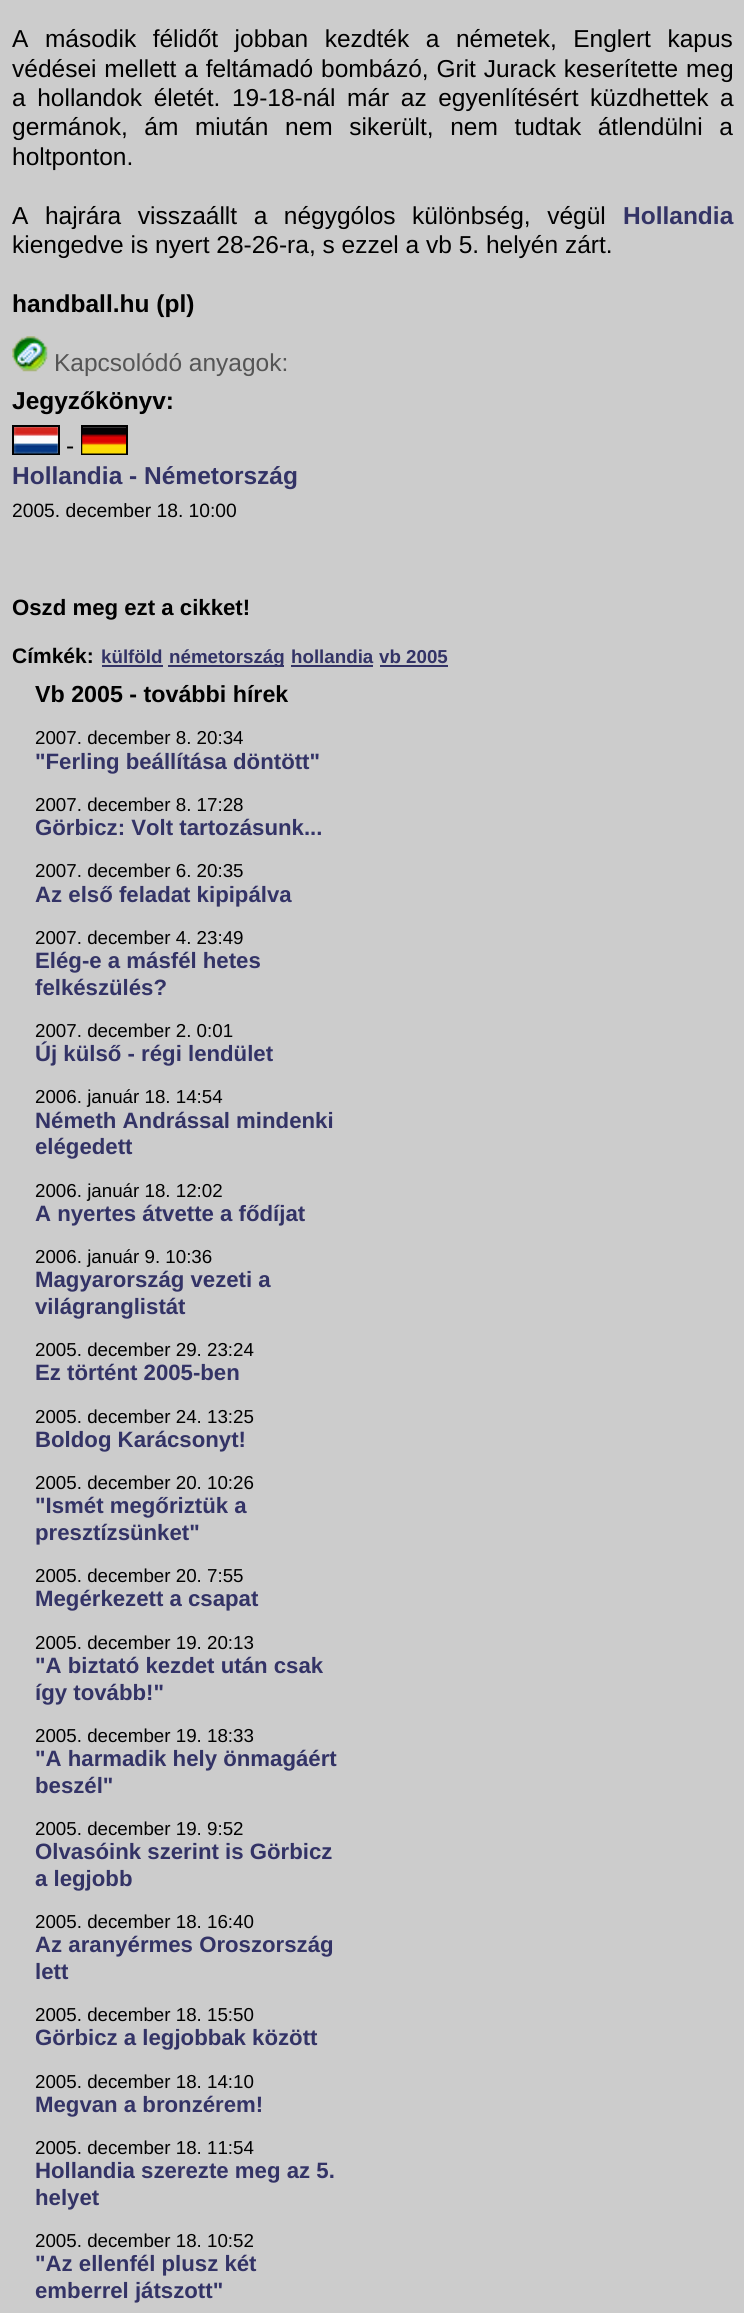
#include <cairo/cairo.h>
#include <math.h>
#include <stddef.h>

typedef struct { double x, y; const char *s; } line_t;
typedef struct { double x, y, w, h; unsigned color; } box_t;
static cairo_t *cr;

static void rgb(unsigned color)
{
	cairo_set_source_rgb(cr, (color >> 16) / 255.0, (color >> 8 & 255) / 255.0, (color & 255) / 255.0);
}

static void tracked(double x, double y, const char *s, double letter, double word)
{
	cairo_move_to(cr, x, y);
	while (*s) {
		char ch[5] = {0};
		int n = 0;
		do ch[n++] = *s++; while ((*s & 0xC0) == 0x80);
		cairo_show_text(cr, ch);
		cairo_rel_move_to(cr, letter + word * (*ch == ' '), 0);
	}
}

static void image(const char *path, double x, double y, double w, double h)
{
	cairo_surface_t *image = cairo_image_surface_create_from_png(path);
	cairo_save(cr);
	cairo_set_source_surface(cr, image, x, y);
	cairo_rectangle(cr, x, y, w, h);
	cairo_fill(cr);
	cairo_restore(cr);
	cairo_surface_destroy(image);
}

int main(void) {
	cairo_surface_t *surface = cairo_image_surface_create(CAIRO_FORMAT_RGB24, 744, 2313);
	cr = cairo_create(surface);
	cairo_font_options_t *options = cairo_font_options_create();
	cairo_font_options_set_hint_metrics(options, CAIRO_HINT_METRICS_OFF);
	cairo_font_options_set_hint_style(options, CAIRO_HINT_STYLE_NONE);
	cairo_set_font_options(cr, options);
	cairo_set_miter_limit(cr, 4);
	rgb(0xcccccc);
	cairo_paint(cr);
	image("img/1.png", 12, 336, 36, 36);
	cairo_rectangle(cr, 13, 426, 46, 28);
	rgb(0x000000);
	cairo_stroke(cr);
	cairo_rectangle(cr, 82, 426, 45, 28);
	cairo_stroke(cr);
	image("img/2.png", 14, 427, 44, 27);
	image("img/3.png", 82, 427, 44, 27);
	{
		static const box_t items[] = {
			{102, 665, 61, 2, 0x333366},
			{168, 665, 116, 2, 0x333366},
			{291, 665, 82, 2, 0x333366},
			{380, 665, 68, 2, 0x333366},
		};
		for (size_t i = 0; i < sizeof items / sizeof *items; i++) {
			rgb(items[i].color);
			cairo_rectangle(cr, items[i].x, items[i].y, items[i].w, items[i].h);
			cairo_fill(cr);
		}
	}
	cairo_select_font_face(cr, "Liberation Sans", CAIRO_FONT_SLANT_NORMAL, CAIRO_FONT_WEIGHT_NORMAL);
	cairo_set_font_size(cr, 24.5);
	rgb(0x000000);
	tracked(12, 47, "A második félidőt jobban kezdték a németek, Englert kapus", 0, 9.75);
	tracked(12, 77, "védései mellett a feltámadó bombázó, Grit Jurack keserítette meg", 0, 1);
	tracked(12, 106, "a hollandok életét. 19-18-nál már az egyenlítésért küzdhettek a", 0, 4.75);
	tracked(12, 135, "germánok, ám miután nem sikerült, nem tudtak átlendülni a", 0, 9.75);
	cairo_move_to(cr, 12, 165);
	cairo_show_text(cr, "holtponton.");
	tracked(12, 224, "A hajrára visszaállt a négygólos különbség, végül", 0, 9.75);
	cairo_select_font_face(cr, "Liberation Sans", CAIRO_FONT_SLANT_NORMAL, CAIRO_FONT_WEIGHT_BOLD);
	rgb(0x333366);
	cairo_move_to(cr, 623, 224);
	cairo_show_text(cr, "Hollandia");
	cairo_select_font_face(cr, "Liberation Sans", CAIRO_FONT_SLANT_NORMAL, CAIRO_FONT_WEIGHT_NORMAL);
	rgb(0x000000);
	cairo_move_to(cr, 12, 253);
	cairo_show_text(cr, "kiengedve is nyert 28-26-ra, s ezzel a vb 5. helyén zárt.");
	cairo_select_font_face(cr, "Liberation Sans", CAIRO_FONT_SLANT_NORMAL, CAIRO_FONT_WEIGHT_BOLD);
	cairo_move_to(cr, 12, 312);
	cairo_show_text(cr, "handball.hu (pl)");
	cairo_select_font_face(cr, "Liberation Sans", CAIRO_FONT_SLANT_NORMAL, CAIRO_FONT_WEIGHT_NORMAL);
	rgb(0x555555);
	cairo_move_to(cr, 54, 371);
	cairo_show_text(cr, "Kapcsolódó anyagok:");
	cairo_select_font_face(cr, "Liberation Sans", CAIRO_FONT_SLANT_NORMAL, CAIRO_FONT_WEIGHT_BOLD);
	rgb(0x000000);
	cairo_move_to(cr, 12, 409);
	cairo_show_text(cr, "Jegyzőkönyv:");
	cairo_select_font_face(cr, "Liberation Sans", CAIRO_FONT_SLANT_NORMAL, CAIRO_FONT_WEIGHT_NORMAL);
	cairo_move_to(cr, 66, 454);
	cairo_show_text(cr, "-");
	cairo_select_font_face(cr, "Liberation Sans", CAIRO_FONT_SLANT_NORMAL, CAIRO_FONT_WEIGHT_BOLD);
	rgb(0x333366);
	cairo_move_to(cr, 12, 484);
	cairo_show_text(cr, "Hollandia - Németország");
	cairo_select_font_face(cr, "Liberation Sans", CAIRO_FONT_SLANT_NORMAL, CAIRO_FONT_WEIGHT_NORMAL);
	cairo_set_font_size(cr, 19.25);
	rgb(0x000000);
	cairo_move_to(cr, 12, 517);
	cairo_show_text(cr, "2005. december 18. 10:00");
	cairo_select_font_face(cr, "Liberation Sans", CAIRO_FONT_SLANT_NORMAL, CAIRO_FONT_WEIGHT_BOLD);
	cairo_set_font_size(cr, 22.2);
	cairo_move_to(cr, 12, 615);
	cairo_show_text(cr, "Oszd meg ezt a cikket!");
	cairo_set_font_size(cr, 21);
	cairo_move_to(cr, 12, 663);
	cairo_show_text(cr, "Címkék:");
	cairo_set_font_size(cr, 18.75);
	rgb(0x333366);
	{
		static const line_t items[] = {
			{101, 663, "külföld"},
			{169, 663, "németország"},
			{291, 663, "hollandia"},
			{379, 663, "vb 2005"},
		};
		for (size_t i = 0; i < sizeof items / sizeof *items; i++) {
			cairo_move_to(cr, items[i].x, items[i].y);
			cairo_show_text(cr, items[i].s);
		}
	}
	cairo_set_font_size(cr, 23.25);
	rgb(0x000000);
	cairo_move_to(cr, 35, 702);
	cairo_show_text(cr, "Vb 2005 - további hírek");
	cairo_select_font_face(cr, "Liberation Sans", CAIRO_FONT_SLANT_NORMAL, CAIRO_FONT_WEIGHT_NORMAL);
	cairo_set_font_size(cr, 18.75);
	cairo_move_to(cr, 35, 744);
	cairo_show_text(cr, "2007. december 8. 20:34");
	cairo_select_font_face(cr, "Liberation Sans", CAIRO_FONT_SLANT_NORMAL, CAIRO_FONT_WEIGHT_BOLD);
	cairo_set_font_size(cr, 22.2);
	rgb(0x333366);
	cairo_move_to(cr, 35, 769);
	cairo_show_text(cr, "\"Ferling beállítása döntött\"");
	cairo_select_font_face(cr, "Liberation Sans", CAIRO_FONT_SLANT_NORMAL, CAIRO_FONT_WEIGHT_NORMAL);
	cairo_set_font_size(cr, 18.75);
	rgb(0x000000);
	cairo_move_to(cr, 35, 811);
	cairo_show_text(cr, "2007. december 8. 17:28");
	cairo_select_font_face(cr, "Liberation Sans", CAIRO_FONT_SLANT_NORMAL, CAIRO_FONT_WEIGHT_BOLD);
	cairo_set_font_size(cr, 22.2);
	rgb(0x333366);
	cairo_move_to(cr, 35, 835);
	cairo_show_text(cr, "Görbicz: Volt tartozásunk...");
	cairo_select_font_face(cr, "Liberation Sans", CAIRO_FONT_SLANT_NORMAL, CAIRO_FONT_WEIGHT_NORMAL);
	cairo_set_font_size(cr, 18.75);
	rgb(0x000000);
	cairo_move_to(cr, 35, 877);
	cairo_show_text(cr, "2007. december 6. 20:35");
	cairo_select_font_face(cr, "Liberation Sans", CAIRO_FONT_SLANT_NORMAL, CAIRO_FONT_WEIGHT_BOLD);
	cairo_set_font_size(cr, 22.2);
	rgb(0x333366);
	cairo_move_to(cr, 35, 902);
	cairo_show_text(cr, "Az első feladat kipipálva");
	cairo_select_font_face(cr, "Liberation Sans", CAIRO_FONT_SLANT_NORMAL, CAIRO_FONT_WEIGHT_NORMAL);
	cairo_set_font_size(cr, 18.75);
	rgb(0x000000);
	cairo_move_to(cr, 35, 944);
	cairo_show_text(cr, "2007. december 4. 23:49");
	cairo_select_font_face(cr, "Liberation Sans", CAIRO_FONT_SLANT_NORMAL, CAIRO_FONT_WEIGHT_BOLD);
	cairo_set_font_size(cr, 22.2);
	rgb(0x333366);
	cairo_move_to(cr, 35, 968);
	cairo_show_text(cr, "Elég-e a másfél hetes");
	cairo_move_to(cr, 35, 995);
	cairo_show_text(cr, "felkészülés?");
	cairo_select_font_face(cr, "Liberation Sans", CAIRO_FONT_SLANT_NORMAL, CAIRO_FONT_WEIGHT_NORMAL);
	cairo_set_font_size(cr, 18.75);
	rgb(0x000000);
	cairo_move_to(cr, 35, 1037);
	cairo_show_text(cr, "2007. december 2. 0:01");
	cairo_select_font_face(cr, "Liberation Sans", CAIRO_FONT_SLANT_NORMAL, CAIRO_FONT_WEIGHT_BOLD);
	cairo_set_font_size(cr, 22.2);
	rgb(0x333366);
	cairo_move_to(cr, 35, 1061);
	cairo_show_text(cr, "Új külső - régi lendület");
	cairo_select_font_face(cr, "Liberation Sans", CAIRO_FONT_SLANT_NORMAL, CAIRO_FONT_WEIGHT_NORMAL);
	cairo_set_font_size(cr, 18.75);
	rgb(0x000000);
	cairo_move_to(cr, 35, 1103);
	cairo_show_text(cr, "2006. január 18. 14:54");
	cairo_select_font_face(cr, "Liberation Sans", CAIRO_FONT_SLANT_NORMAL, CAIRO_FONT_WEIGHT_BOLD);
	cairo_set_font_size(cr, 22.2);
	rgb(0x333366);
	cairo_move_to(cr, 35, 1128);
	cairo_show_text(cr, "Németh Andrással mindenki");
	cairo_move_to(cr, 35, 1154);
	cairo_show_text(cr, "elégedett");
	cairo_select_font_face(cr, "Liberation Sans", CAIRO_FONT_SLANT_NORMAL, CAIRO_FONT_WEIGHT_NORMAL);
	cairo_set_font_size(cr, 18.75);
	rgb(0x000000);
	cairo_move_to(cr, 35, 1197);
	cairo_show_text(cr, "2006. január 18. 12:02");
	cairo_select_font_face(cr, "Liberation Sans", CAIRO_FONT_SLANT_NORMAL, CAIRO_FONT_WEIGHT_BOLD);
	cairo_set_font_size(cr, 22.2);
	rgb(0x333366);
	cairo_move_to(cr, 35, 1221);
	cairo_show_text(cr, "A nyertes átvette a fődíjat");
	cairo_select_font_face(cr, "Liberation Sans", CAIRO_FONT_SLANT_NORMAL, CAIRO_FONT_WEIGHT_NORMAL);
	cairo_set_font_size(cr, 18.75);
	rgb(0x000000);
	cairo_move_to(cr, 35, 1263);
	cairo_show_text(cr, "2006. január 9. 10:36");
	cairo_select_font_face(cr, "Liberation Sans", CAIRO_FONT_SLANT_NORMAL, CAIRO_FONT_WEIGHT_BOLD);
	cairo_set_font_size(cr, 22.2);
	rgb(0x333366);
	cairo_move_to(cr, 35, 1287);
	cairo_show_text(cr, "Magyarország vezeti a");
	cairo_move_to(cr, 35, 1314);
	cairo_show_text(cr, "világranglistát");
	cairo_select_font_face(cr, "Liberation Sans", CAIRO_FONT_SLANT_NORMAL, CAIRO_FONT_WEIGHT_NORMAL);
	cairo_set_font_size(cr, 18.75);
	rgb(0x000000);
	cairo_move_to(cr, 35, 1356);
	cairo_show_text(cr, "2005. december 29. 23:24");
	cairo_select_font_face(cr, "Liberation Sans", CAIRO_FONT_SLANT_NORMAL, CAIRO_FONT_WEIGHT_BOLD);
	cairo_set_font_size(cr, 22.2);
	rgb(0x333366);
	cairo_move_to(cr, 35, 1380);
	cairo_show_text(cr, "Ez történt 2005-ben");
	cairo_select_font_face(cr, "Liberation Sans", CAIRO_FONT_SLANT_NORMAL, CAIRO_FONT_WEIGHT_NORMAL);
	cairo_set_font_size(cr, 18.75);
	rgb(0x000000);
	cairo_move_to(cr, 35, 1423);
	cairo_show_text(cr, "2005. december 24. 13:25");
	cairo_select_font_face(cr, "Liberation Sans", CAIRO_FONT_SLANT_NORMAL, CAIRO_FONT_WEIGHT_BOLD);
	cairo_set_font_size(cr, 22.2);
	rgb(0x333366);
	cairo_move_to(cr, 35, 1447);
	cairo_show_text(cr, "Boldog Karácsonyt!");
	cairo_select_font_face(cr, "Liberation Sans", CAIRO_FONT_SLANT_NORMAL, CAIRO_FONT_WEIGHT_NORMAL);
	cairo_set_font_size(cr, 18.75);
	rgb(0x000000);
	cairo_move_to(cr, 35, 1489);
	cairo_show_text(cr, "2005. december 20. 10:26");
	cairo_select_font_face(cr, "Liberation Sans", CAIRO_FONT_SLANT_NORMAL, CAIRO_FONT_WEIGHT_BOLD);
	cairo_set_font_size(cr, 22.2);
	rgb(0x333366);
	cairo_move_to(cr, 35, 1513);
	cairo_show_text(cr, "\"Ismét megőriztük a");
	cairo_move_to(cr, 35, 1540);
	cairo_show_text(cr, "presztízsünket\"");
	cairo_select_font_face(cr, "Liberation Sans", CAIRO_FONT_SLANT_NORMAL, CAIRO_FONT_WEIGHT_NORMAL);
	cairo_set_font_size(cr, 18.75);
	rgb(0x000000);
	cairo_move_to(cr, 35, 1582);
	cairo_show_text(cr, "2005. december 20. 7:55");
	cairo_select_font_face(cr, "Liberation Sans", CAIRO_FONT_SLANT_NORMAL, CAIRO_FONT_WEIGHT_BOLD);
	cairo_set_font_size(cr, 22.2);
	rgb(0x333366);
	cairo_move_to(cr, 35, 1606);
	cairo_show_text(cr, "Megérkezett a csapat");
	cairo_select_font_face(cr, "Liberation Sans", CAIRO_FONT_SLANT_NORMAL, CAIRO_FONT_WEIGHT_NORMAL);
	cairo_set_font_size(cr, 18.75);
	rgb(0x000000);
	cairo_move_to(cr, 35, 1649);
	cairo_show_text(cr, "2005. december 19. 20:13");
	cairo_select_font_face(cr, "Liberation Sans", CAIRO_FONT_SLANT_NORMAL, CAIRO_FONT_WEIGHT_BOLD);
	cairo_set_font_size(cr, 22.2);
	rgb(0x333366);
	cairo_move_to(cr, 35, 1673);
	cairo_show_text(cr, "\"A biztató kezdet után csak");
	cairo_move_to(cr, 35, 1700);
	cairo_show_text(cr, "így tovább!\"");
	cairo_select_font_face(cr, "Liberation Sans", CAIRO_FONT_SLANT_NORMAL, CAIRO_FONT_WEIGHT_NORMAL);
	cairo_set_font_size(cr, 18.75);
	rgb(0x000000);
	cairo_move_to(cr, 35, 1742);
	cairo_show_text(cr, "2005. december 19. 18:33");
	cairo_select_font_face(cr, "Liberation Sans", CAIRO_FONT_SLANT_NORMAL, CAIRO_FONT_WEIGHT_BOLD);
	cairo_set_font_size(cr, 22.2);
	rgb(0x333366);
	cairo_move_to(cr, 35, 1766);
	cairo_show_text(cr, "\"A harmadik hely önmagáért");
	cairo_move_to(cr, 35, 1793);
	cairo_show_text(cr, "beszél\"");
	cairo_select_font_face(cr, "Liberation Sans", CAIRO_FONT_SLANT_NORMAL, CAIRO_FONT_WEIGHT_NORMAL);
	cairo_set_font_size(cr, 18.75);
	rgb(0x000000);
	cairo_move_to(cr, 35, 1835);
	cairo_show_text(cr, "2005. december 19. 9:52");
	cairo_select_font_face(cr, "Liberation Sans", CAIRO_FONT_SLANT_NORMAL, CAIRO_FONT_WEIGHT_BOLD);
	cairo_set_font_size(cr, 22.2);
	rgb(0x333366);
	cairo_move_to(cr, 35, 1859);
	cairo_show_text(cr, "Olvasóink szerint is Görbicz");
	cairo_move_to(cr, 35, 1886);
	cairo_show_text(cr, "a legjobb");
	cairo_select_font_face(cr, "Liberation Sans", CAIRO_FONT_SLANT_NORMAL, CAIRO_FONT_WEIGHT_NORMAL);
	cairo_set_font_size(cr, 18.75);
	rgb(0x000000);
	cairo_move_to(cr, 35, 1928);
	cairo_show_text(cr, "2005. december 18. 16:40");
	cairo_select_font_face(cr, "Liberation Sans", CAIRO_FONT_SLANT_NORMAL, CAIRO_FONT_WEIGHT_BOLD);
	cairo_set_font_size(cr, 22.2);
	rgb(0x333366);
	cairo_move_to(cr, 35, 1952);
	cairo_show_text(cr, "Az aranyérmes Oroszország");
	cairo_move_to(cr, 35, 1979);
	cairo_show_text(cr, "lett");
	cairo_select_font_face(cr, "Liberation Sans", CAIRO_FONT_SLANT_NORMAL, CAIRO_FONT_WEIGHT_NORMAL);
	cairo_set_font_size(cr, 18.75);
	rgb(0x000000);
	cairo_move_to(cr, 35, 2021);
	cairo_show_text(cr, "2005. december 18. 15:50");
	cairo_select_font_face(cr, "Liberation Sans", CAIRO_FONT_SLANT_NORMAL, CAIRO_FONT_WEIGHT_BOLD);
	cairo_set_font_size(cr, 22.2);
	rgb(0x333366);
	cairo_move_to(cr, 35, 2045);
	cairo_show_text(cr, "Görbicz a legjobbak között");
	cairo_select_font_face(cr, "Liberation Sans", CAIRO_FONT_SLANT_NORMAL, CAIRO_FONT_WEIGHT_NORMAL);
	cairo_set_font_size(cr, 18.75);
	rgb(0x000000);
	cairo_move_to(cr, 35, 2088);
	cairo_show_text(cr, "2005. december 18. 14:10");
	cairo_select_font_face(cr, "Liberation Sans", CAIRO_FONT_SLANT_NORMAL, CAIRO_FONT_WEIGHT_BOLD);
	cairo_set_font_size(cr, 22.2);
	rgb(0x333366);
	cairo_move_to(cr, 35, 2112);
	cairo_show_text(cr, "Megvan a bronzérem!");
	cairo_select_font_face(cr, "Liberation Sans", CAIRO_FONT_SLANT_NORMAL, CAIRO_FONT_WEIGHT_NORMAL);
	cairo_set_font_size(cr, 18.75);
	rgb(0x000000);
	cairo_move_to(cr, 35, 2154);
	cairo_show_text(cr, "2005. december 18. 11:54");
	cairo_select_font_face(cr, "Liberation Sans", CAIRO_FONT_SLANT_NORMAL, CAIRO_FONT_WEIGHT_BOLD);
	cairo_set_font_size(cr, 22.2);
	rgb(0x333366);
	cairo_move_to(cr, 35, 2178);
	cairo_show_text(cr, "Hollandia szerezte meg az 5.");
	cairo_move_to(cr, 35, 2205);
	cairo_show_text(cr, "helyet");
	cairo_select_font_face(cr, "Liberation Sans", CAIRO_FONT_SLANT_NORMAL, CAIRO_FONT_WEIGHT_NORMAL);
	cairo_set_font_size(cr, 18.75);
	rgb(0x000000);
	cairo_move_to(cr, 35, 2247);
	cairo_show_text(cr, "2005. december 18. 10:52");
	cairo_select_font_face(cr, "Liberation Sans", CAIRO_FONT_SLANT_NORMAL, CAIRO_FONT_WEIGHT_BOLD);
	cairo_set_font_size(cr, 22.2);
	rgb(0x333366);
	cairo_move_to(cr, 35, 2271);
	cairo_show_text(cr, "\"Az ellenfél plusz két");
	cairo_move_to(cr, 35, 2298);
	cairo_show_text(cr, "emberrel játszott\"");
	cairo_surface_write_to_png(surface, "page.png");
	cairo_font_options_destroy(options);
	cairo_destroy(cr);
	cairo_surface_destroy(surface);
	return 0;
}
